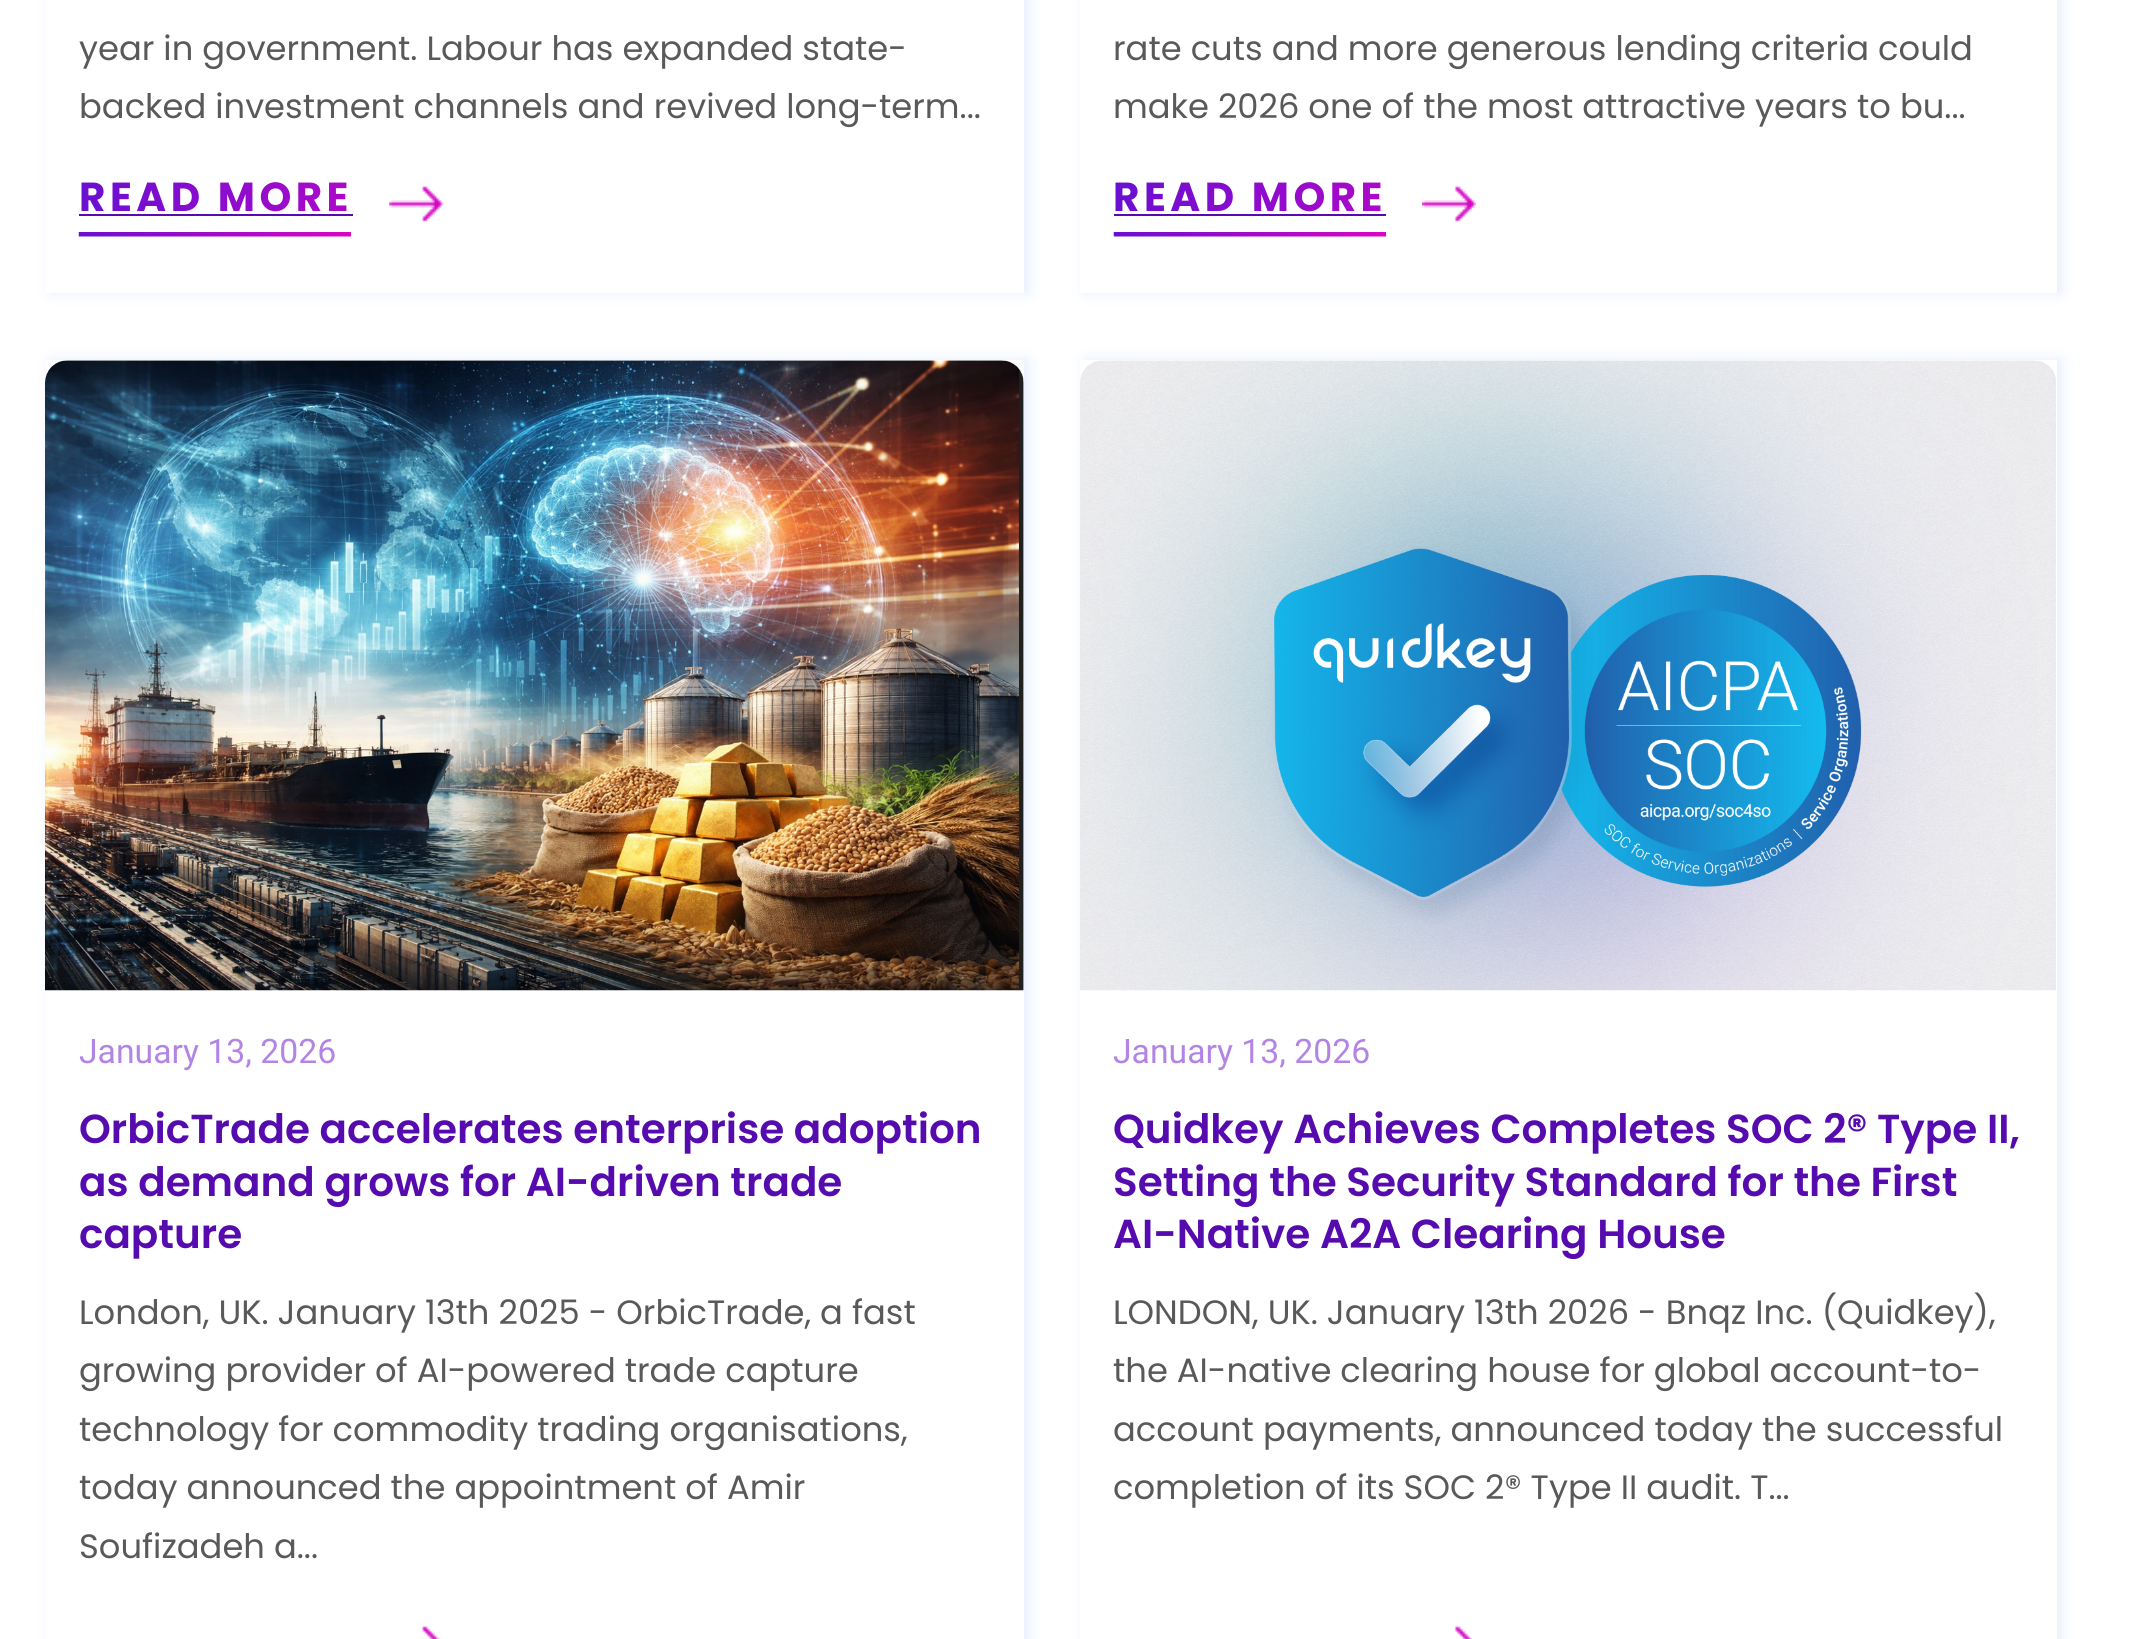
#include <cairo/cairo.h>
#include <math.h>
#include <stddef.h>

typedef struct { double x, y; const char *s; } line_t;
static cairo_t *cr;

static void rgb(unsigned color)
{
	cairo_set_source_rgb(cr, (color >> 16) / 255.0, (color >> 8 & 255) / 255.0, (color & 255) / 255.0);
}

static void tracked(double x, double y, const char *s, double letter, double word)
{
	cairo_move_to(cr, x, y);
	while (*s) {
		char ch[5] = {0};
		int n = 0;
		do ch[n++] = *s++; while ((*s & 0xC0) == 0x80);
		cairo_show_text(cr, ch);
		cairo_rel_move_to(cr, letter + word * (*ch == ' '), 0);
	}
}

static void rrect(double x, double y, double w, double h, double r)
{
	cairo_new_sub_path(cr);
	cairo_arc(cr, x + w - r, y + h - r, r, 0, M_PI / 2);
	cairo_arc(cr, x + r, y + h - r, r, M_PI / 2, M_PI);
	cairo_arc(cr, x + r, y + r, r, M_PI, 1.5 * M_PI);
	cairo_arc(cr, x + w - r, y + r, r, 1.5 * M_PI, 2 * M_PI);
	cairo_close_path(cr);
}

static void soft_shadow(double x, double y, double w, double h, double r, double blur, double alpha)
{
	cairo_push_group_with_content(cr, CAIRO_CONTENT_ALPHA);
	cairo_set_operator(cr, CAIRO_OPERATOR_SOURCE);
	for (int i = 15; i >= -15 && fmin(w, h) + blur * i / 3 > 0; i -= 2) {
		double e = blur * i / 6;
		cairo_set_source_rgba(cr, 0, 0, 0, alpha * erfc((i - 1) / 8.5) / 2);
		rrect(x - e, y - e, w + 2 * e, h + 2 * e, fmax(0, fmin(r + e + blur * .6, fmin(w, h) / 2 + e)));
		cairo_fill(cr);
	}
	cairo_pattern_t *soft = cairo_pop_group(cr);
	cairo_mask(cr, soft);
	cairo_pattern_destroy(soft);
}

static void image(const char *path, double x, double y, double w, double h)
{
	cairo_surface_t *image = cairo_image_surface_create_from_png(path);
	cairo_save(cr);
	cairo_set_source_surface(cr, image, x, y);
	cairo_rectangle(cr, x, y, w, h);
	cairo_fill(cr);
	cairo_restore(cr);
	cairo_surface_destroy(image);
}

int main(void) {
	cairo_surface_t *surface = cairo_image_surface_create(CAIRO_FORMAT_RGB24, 2149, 1639);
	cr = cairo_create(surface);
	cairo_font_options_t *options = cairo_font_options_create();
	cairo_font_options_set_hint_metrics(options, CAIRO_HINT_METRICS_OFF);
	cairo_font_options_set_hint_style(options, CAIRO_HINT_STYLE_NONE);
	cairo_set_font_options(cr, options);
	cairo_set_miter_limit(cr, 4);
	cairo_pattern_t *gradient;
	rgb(0xffffff);
	cairo_paint(cr);
	rgb(0x91baf9);
	soft_shadow(50, -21, 978, 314, 0, 7, 0.25);
	rgb(0xffffff);
	cairo_rectangle(cr, 45, 0, 979, 293);
	cairo_fill(cr);
	rgb(0x560baf);
	cairo_rectangle(cr, 79, 214, 274, 2);
	cairo_fill(cr);
	image("img/1.png", 389, 185, 55, 38);
	image("img/2.png", 78, 232, 273, 5);
	rgb(0x91baf9);
	soft_shadow(1085, -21, 976, 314, 0, 7, 0.25);
	rgb(0xffffff);
	cairo_rectangle(cr, 1080, 0, 977, 293);
	cairo_fill(cr);
	rgb(0x560baf);
	cairo_rectangle(cr, 1114, 214, 272, 2);
	cairo_fill(cr);
	image("img/3.png", 1422, 185, 54, 38);
	image("img/4.png", 1113, 232, 273, 5);
	rgb(0x91baf9);
	soft_shadow(50, 360, 978, 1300, 0, 7, 0.25);
	rgb(0xffffff);
	cairo_rectangle(cr, 45, 360, 979, 1279);
	cairo_fill(cr);
	image("img/5.png", 45, 360, 979, 631);
	image("img/6.png", 420, 1625, 20, 14);
	rgb(0x91baf9);
	soft_shadow(1085, 360, 976, 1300, 0, 7, 0.25);
	rgb(0xffffff);
	cairo_rectangle(cr, 1080, 360, 977, 1279);
	cairo_fill(cr);
	image("img/7.png", 1080, 360, 976, 631);
	image("img/8.png", 1453, 1625, 20, 14);
	cairo_select_font_face(cr, "Poppins", CAIRO_FONT_SLANT_NORMAL, CAIRO_FONT_WEIGHT_NORMAL);
	cairo_set_font_size(cr, 33.75);
	rgb(0x595959);
	cairo_move_to(cr, 79, 60);
	cairo_show_text(cr, "year in government. Labour has expanded state-");
	cairo_move_to(cr, 79, 118);
	cairo_show_text(cr, "backed investment channels and revived long-term...");
	cairo_select_font_face(cr, "Poppins", CAIRO_FONT_SLANT_NORMAL, CAIRO_FONT_WEIGHT_BOLD);
	cairo_set_font_size(cr, 40.5);
	gradient = cairo_pattern_create_linear(79, 203, 533, 203);
	cairo_pattern_add_color_stop_rgba(gradient, 0, 0.412, 0.059, 0.82, 1);
	cairo_pattern_add_color_stop_rgba(gradient, 1, 0.855, 0.02, 0.765, 1);
	cairo_set_source(cr, gradient);
	cairo_pattern_destroy(gradient);
	tracked(79, 211, "READ MORE", 4.5, 0);
	cairo_select_font_face(cr, "Poppins", CAIRO_FONT_SLANT_NORMAL, CAIRO_FONT_WEIGHT_NORMAL);
	cairo_set_font_size(cr, 33.75);
	rgb(0x595959);
	cairo_move_to(cr, 1113, 60);
	cairo_show_text(cr, "rate cuts and more generous lending criteria could");
	cairo_move_to(cr, 1113, 118);
	cairo_show_text(cr, "make 2026 one of the most attractive years to bu...");
	cairo_select_font_face(cr, "Poppins", CAIRO_FONT_SLANT_NORMAL, CAIRO_FONT_WEIGHT_BOLD);
	cairo_set_font_size(cr, 40.5);
	gradient = cairo_pattern_create_linear(1113, 203, 1567, 203);
	cairo_pattern_add_color_stop_rgba(gradient, 0, 0.412, 0.059, 0.82, 1);
	cairo_pattern_add_color_stop_rgba(gradient, 1, 0.855, 0.02, 0.765, 1);
	cairo_set_source(cr, gradient);
	cairo_pattern_destroy(gradient);
	tracked(1113, 211, "READ MORE", 4.5, 0);
	cairo_select_font_face(cr, "Roboto", CAIRO_FONT_SLANT_NORMAL, CAIRO_FONT_WEIGHT_NORMAL);
	cairo_set_font_size(cr, 33.75);
	rgb(0xb285e5);
	cairo_move_to(cr, 79, 1063);
	cairo_show_text(cr, "January 13, 2026");
	cairo_select_font_face(cr, "Poppins SemiBold", CAIRO_FONT_SLANT_NORMAL, CAIRO_FONT_WEIGHT_NORMAL);
	cairo_set_font_size(cr, 40.5);
	rgb(0x560baf);
	{
		static const line_t items[] = {
			{79, 1143, "OrbicTrade accelerates enterprise adoption"},
			{79, 1196, "as demand grows for AI-driven trade"},
			{79, 1248, "capture"},
		};
		for (size_t i = 0; i < sizeof items / sizeof *items; i++) {
			cairo_move_to(cr, items[i].x, items[i].y);
			cairo_show_text(cr, items[i].s);
		}
	}
	cairo_select_font_face(cr, "Poppins", CAIRO_FONT_SLANT_NORMAL, CAIRO_FONT_WEIGHT_NORMAL);
	cairo_set_font_size(cr, 33.75);
	rgb(0x595959);
	{
		static const line_t items[] = {
			{79, 1324, "London, UK. January 13th 2025 - OrbicTrade, a fast"},
			{79, 1382, "growing provider of AI-powered trade capture"},
			{79, 1441, "technology for commodity trading organisations,"},
			{79, 1499, "today announced the appointment of Amir"},
			{79, 1558, "Soufizadeh a..."},
		};
		for (size_t i = 0; i < sizeof items / sizeof *items; i++) {
			cairo_move_to(cr, items[i].x, items[i].y);
			cairo_show_text(cr, items[i].s);
		}
	}
	cairo_select_font_face(cr, "Roboto", CAIRO_FONT_SLANT_NORMAL, CAIRO_FONT_WEIGHT_NORMAL);
	rgb(0xb285e5);
	cairo_move_to(cr, 1113, 1063);
	cairo_show_text(cr, "January 13, 2026");
	cairo_select_font_face(cr, "Poppins SemiBold", CAIRO_FONT_SLANT_NORMAL, CAIRO_FONT_WEIGHT_NORMAL);
	cairo_set_font_size(cr, 40.5);
	rgb(0x560baf);
	{
		static const line_t items[] = {
			{1113, 1143, "Quidkey Achieves Completes SOC 2® Type II,"},
			{1113, 1196, "Setting the Security Standard for the First"},
			{1113, 1248, "AI-Native A2A Clearing House"},
		};
		for (size_t i = 0; i < sizeof items / sizeof *items; i++) {
			cairo_move_to(cr, items[i].x, items[i].y);
			cairo_show_text(cr, items[i].s);
		}
	}
	cairo_select_font_face(cr, "Poppins", CAIRO_FONT_SLANT_NORMAL, CAIRO_FONT_WEIGHT_NORMAL);
	cairo_set_font_size(cr, 33.75);
	rgb(0x595959);
	{
		static const line_t items[] = {
			{1113, 1324, "LONDON, UK. January 13th 2026 - Bnqz Inc. (Quidkey),"},
			{1113, 1382, "the AI-native clearing house for global account-to-"},
			{1113, 1441, "account payments, announced today the successful"},
			{1113, 1499, "completion of its SOC 2® Type II audit. T..."},
		};
		for (size_t i = 0; i < sizeof items / sizeof *items; i++) {
			cairo_move_to(cr, items[i].x, items[i].y);
			cairo_show_text(cr, items[i].s);
		}
	}
	cairo_surface_write_to_png(surface, "page.png");
	cairo_font_options_destroy(options);
	cairo_destroy(cr);
	cairo_surface_destroy(surface);
	return 0;
}
